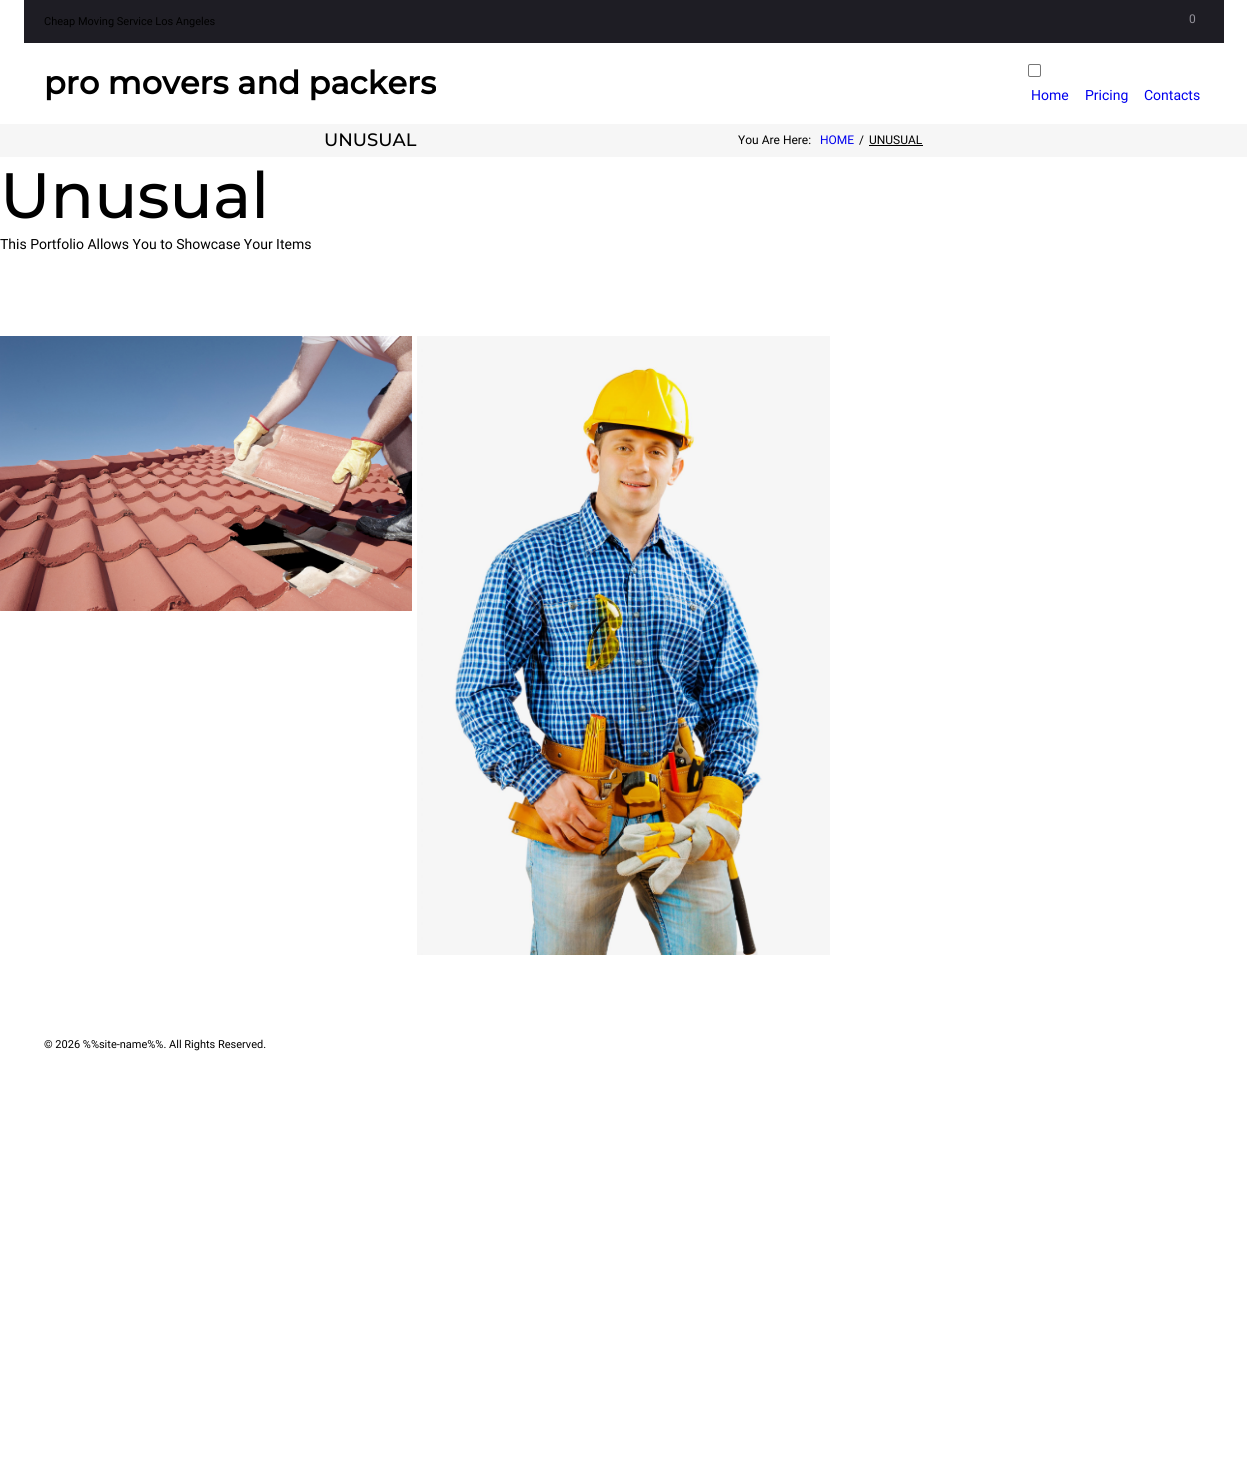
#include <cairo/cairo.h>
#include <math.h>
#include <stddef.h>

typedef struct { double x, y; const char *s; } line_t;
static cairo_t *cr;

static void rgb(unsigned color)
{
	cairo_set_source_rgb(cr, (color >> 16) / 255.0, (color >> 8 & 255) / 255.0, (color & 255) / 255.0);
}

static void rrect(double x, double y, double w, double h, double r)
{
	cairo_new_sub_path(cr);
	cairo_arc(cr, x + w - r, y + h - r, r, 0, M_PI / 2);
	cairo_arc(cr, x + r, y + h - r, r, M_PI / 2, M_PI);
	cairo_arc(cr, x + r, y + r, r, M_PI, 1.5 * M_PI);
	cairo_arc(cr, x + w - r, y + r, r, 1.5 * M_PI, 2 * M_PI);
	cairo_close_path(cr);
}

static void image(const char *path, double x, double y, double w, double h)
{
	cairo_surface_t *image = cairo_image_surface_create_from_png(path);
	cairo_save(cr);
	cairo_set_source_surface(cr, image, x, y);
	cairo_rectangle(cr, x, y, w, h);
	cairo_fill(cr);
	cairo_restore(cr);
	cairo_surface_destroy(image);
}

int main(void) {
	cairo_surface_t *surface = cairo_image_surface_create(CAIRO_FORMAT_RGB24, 1247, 1462);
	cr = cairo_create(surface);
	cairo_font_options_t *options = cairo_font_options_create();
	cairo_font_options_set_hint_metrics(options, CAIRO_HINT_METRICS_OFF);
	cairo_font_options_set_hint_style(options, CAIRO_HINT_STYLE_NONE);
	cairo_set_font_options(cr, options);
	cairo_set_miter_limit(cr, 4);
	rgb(0xffffff);
	cairo_paint(cr);
	rgb(0x1e1d24);
	cairo_rectangle(cr, 24, 0, 1200, 43);
	cairo_fill(cr);
	rrect(1028.5, 64.5, 12, 12, 1.5);
	rgb(0x767676);
	cairo_set_line_width(cr, 1);
	cairo_stroke(cr);
	rgb(0xf6f6f6);
	cairo_rectangle(cr, 0, 124, 1247, 33);
	cairo_fill(cr);
	rgb(0x000000);
	cairo_rectangle(cr, 869, 145, 54, 1);
	cairo_fill(cr);
	image("img/1.png", 0, 336, 412, 275);
	image("img/2.png", 417, 336, 413, 619);
	cairo_select_font_face(cr, "Roboto", CAIRO_FONT_SLANT_NORMAL, CAIRO_FONT_WEIGHT_NORMAL);
	cairo_set_font_size(cr, 11);
	cairo_move_to(cr, 44, 25);
	cairo_show_text(cr, "Cheap Moving Service Los Angeles");
	cairo_set_font_size(cr, 12);
	rgb(0x94929b);
	cairo_move_to(cr, 1189, 23);
	cairo_show_text(cr, "0");
	cairo_select_font_face(cr, "Montserrat", CAIRO_FONT_SLANT_NORMAL, CAIRO_FONT_WEIGHT_BOLD);
	cairo_set_font_size(cr, 32);
	rgb(0x000000);
	cairo_move_to(cr, 44, 94);
	cairo_show_text(cr, "pro movers and packers");
	cairo_select_font_face(cr, "Roboto", CAIRO_FONT_SLANT_NORMAL, CAIRO_FONT_WEIGHT_NORMAL);
	cairo_set_font_size(cr, 14);
	rgb(0x0000ee);
	{
		static const line_t items[] = {
			{1031, 100, "Home"},
			{1085, 100, "Pricing"},
			{1144, 100, "Contacts"},
		};
		for (size_t i = 0; i < sizeof items / sizeof *items; i++) {
			cairo_move_to(cr, items[i].x, items[i].y);
			cairo_show_text(cr, items[i].s);
		}
	}
	cairo_select_font_face(cr, "Montserrat Thin", CAIRO_FONT_SLANT_NORMAL, CAIRO_FONT_WEIGHT_NORMAL);
	cairo_set_font_size(cr, 18);
	rgb(0x000000);
	cairo_move_to(cr, 324, 146);
	cairo_show_text(cr, "UNUSUAL");
	cairo_select_font_face(cr, "Roboto", CAIRO_FONT_SLANT_NORMAL, CAIRO_FONT_WEIGHT_NORMAL);
	cairo_set_font_size(cr, 12);
	cairo_move_to(cr, 738, 144);
	cairo_show_text(cr, "You Are Here:");
	rgb(0x0000ee);
	cairo_move_to(cr, 820, 144);
	cairo_show_text(cr, "HOME");
	rgb(0x000000);
	cairo_move_to(cr, 859, 144);
	cairo_show_text(cr, "/");
	cairo_move_to(cr, 869, 144);
	cairo_show_text(cr, "UNUSUAL");
	cairo_select_font_face(cr, "Montserrat Thin", CAIRO_FONT_SLANT_NORMAL, CAIRO_FONT_WEIGHT_NORMAL);
	cairo_set_font_size(cr, 64);
	cairo_move_to(cr, 0, 218);
	cairo_show_text(cr, "Unusual");
	cairo_select_font_face(cr, "Roboto", CAIRO_FONT_SLANT_NORMAL, CAIRO_FONT_WEIGHT_NORMAL);
	cairo_set_font_size(cr, 14);
	cairo_move_to(cr, 0, 249);
	cairo_show_text(cr, "This Portfolio Allows You to Showcase Your Items");
	cairo_set_font_size(cr, 11);
	cairo_move_to(cr, 44, 1048);
	cairo_show_text(cr, "© 2026 %%site-name%%. All Rights Reserved.");
	cairo_surface_write_to_png(surface, "page.png");
	cairo_font_options_destroy(options);
	cairo_destroy(cr);
	cairo_surface_destroy(surface);
	return 0;
}
